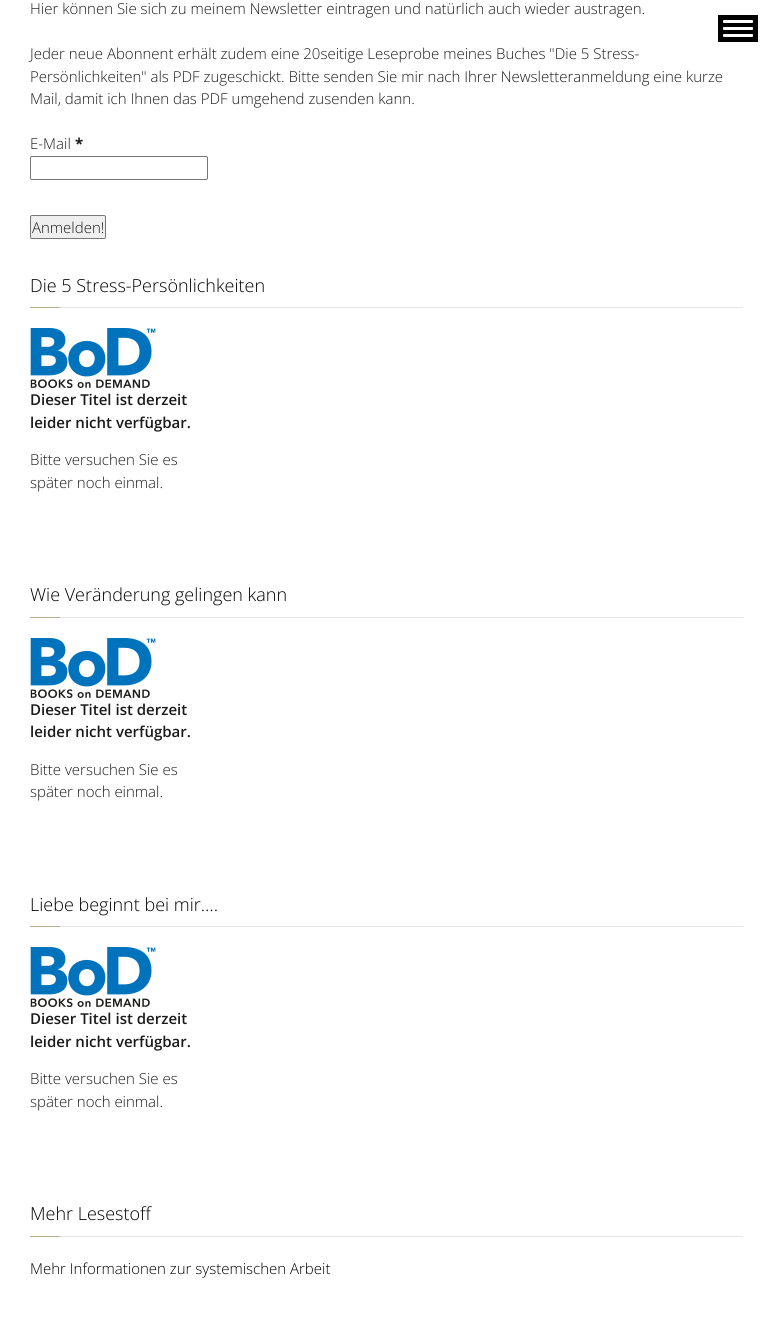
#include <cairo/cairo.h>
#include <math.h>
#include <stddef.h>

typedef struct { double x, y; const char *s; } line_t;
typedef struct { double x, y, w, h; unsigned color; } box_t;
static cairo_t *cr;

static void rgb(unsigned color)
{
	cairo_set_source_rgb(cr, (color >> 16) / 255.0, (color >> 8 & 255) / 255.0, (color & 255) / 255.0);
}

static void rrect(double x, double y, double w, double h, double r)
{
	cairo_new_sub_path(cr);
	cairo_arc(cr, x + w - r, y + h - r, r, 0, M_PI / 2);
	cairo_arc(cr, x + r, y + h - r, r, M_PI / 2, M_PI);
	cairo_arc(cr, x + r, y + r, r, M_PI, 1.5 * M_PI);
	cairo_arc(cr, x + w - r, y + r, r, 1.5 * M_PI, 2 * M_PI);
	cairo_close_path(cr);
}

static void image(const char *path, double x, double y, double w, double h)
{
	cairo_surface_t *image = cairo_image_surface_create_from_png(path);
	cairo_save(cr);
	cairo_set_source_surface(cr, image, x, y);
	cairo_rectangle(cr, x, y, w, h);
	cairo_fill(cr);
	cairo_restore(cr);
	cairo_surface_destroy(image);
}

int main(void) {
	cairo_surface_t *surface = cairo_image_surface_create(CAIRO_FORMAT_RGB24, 773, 1331);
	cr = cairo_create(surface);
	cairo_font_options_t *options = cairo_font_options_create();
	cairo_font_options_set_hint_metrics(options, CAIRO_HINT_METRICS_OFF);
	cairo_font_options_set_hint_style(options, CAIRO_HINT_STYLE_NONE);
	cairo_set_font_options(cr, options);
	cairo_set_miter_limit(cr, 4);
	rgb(0xffffff);
	cairo_paint(cr);
	rrect(30.5, 156.5, 177, 23, 1.5);
	rgb(0x767676);
	cairo_set_line_width(cr, 1);
	cairo_stroke(cr);
	rgb(0xefefef);
	rrect(30.5, 215.5, 75, 23, 1.5);
	cairo_fill_preserve(cr);
	rgb(0x767676);
	cairo_stroke(cr);
	rgb(0xe5e5e5);
	cairo_rectangle(cr, 60, 307, 683, 1);
	cairo_fill(cr);
	rgb(0xbaac8f);
	cairo_rectangle(cr, 30, 307, 30, 1);
	cairo_fill(cr);
	image("img/1.png", 30, 328, 126, 60);
	rgb(0xe5e5e5);
	cairo_rectangle(cr, 60, 617, 683, 1);
	cairo_fill(cr);
	rgb(0xbaac8f);
	cairo_rectangle(cr, 30, 617, 30, 1);
	cairo_fill(cr);
	image("img/1.png", 30, 638, 126, 60);
	rgb(0xe5e5e5);
	cairo_rectangle(cr, 60, 926, 683, 1);
	cairo_fill(cr);
	rgb(0xbaac8f);
	cairo_rectangle(cr, 30, 926, 30, 1);
	cairo_fill(cr);
	image("img/1.png", 30, 947, 126, 60);
	{
		static const box_t items[] = {
			{60, 1236, 683, 1, 0xe5e5e5},
			{30, 1236, 30, 1, 0xbaac8f},
			{718, 15, 40, 27, 0x000000},
		};
		for (size_t i = 0; i < sizeof items / sizeof *items; i++) {
			rgb(items[i].color);
			cairo_rectangle(cr, items[i].x, items[i].y, items[i].w, items[i].h);
			cairo_fill(cr);
		}
	}
	rgb(0xffffff);
	rrect(723, 27, 30, 3, 1);
	cairo_fill(cr);
	rrect(723, 20, 30, 3, 1);
	cairo_fill(cr);
	rrect(723, 34, 30, 3, 1);
	cairo_fill(cr);
	cairo_select_font_face(cr, "Open Sans Light", CAIRO_FONT_SLANT_NORMAL, CAIRO_FONT_WEIGHT_NORMAL);
	cairo_set_font_size(cr, 15);
	rgb(0x1a1a1a);
	{
		static const line_t items[] = {
			{30, 14, "Hier können Sie sich zu meinem Newsletter eintragen und natürlich auch wieder austragen."},
			{30, 59, "Jeder neue Abonnent erhält zudem eine 20seitige Leseprobe meines Buches \"Die 5 Stress-"},
			{30, 82, "Persönlichkeiten\" als PDF zugeschickt. Bitte senden Sie mir nach Ihrer Newsletteranmeldung eine kurze"},
			{30, 104, "Mail, damit ich Ihnen das PDF umgehend zusenden kann."},
			{30, 149, "E-Mail"},
		};
		for (size_t i = 0; i < sizeof items / sizeof *items; i++) {
			cairo_move_to(cr, items[i].x, items[i].y);
			cairo_show_text(cr, items[i].s);
		}
	}
	cairo_select_font_face(cr, "Open Sans", CAIRO_FONT_SLANT_NORMAL, CAIRO_FONT_WEIGHT_BOLD);
	cairo_move_to(cr, 75, 149);
	cairo_show_text(cr, "*");
	cairo_select_font_face(cr, "Open Sans Light", CAIRO_FONT_SLANT_NORMAL, CAIRO_FONT_WEIGHT_NORMAL);
	cairo_move_to(cr, 32, 233);
	cairo_show_text(cr, "Anmelden!");
	cairo_set_font_size(cr, 18);
	rgb(0x000000);
	cairo_move_to(cr, 30, 292);
	cairo_show_text(cr, "Die 5 Stress-Persönlichkeiten");
	cairo_select_font_face(cr, "Open Sans SemiBold", CAIRO_FONT_SLANT_NORMAL, CAIRO_FONT_WEIGHT_NORMAL);
	cairo_set_font_size(cr, 15);
	rgb(0x1a1a1a);
	cairo_move_to(cr, 30, 405);
	cairo_show_text(cr, "Dieser Titel ist derzeit");
	cairo_move_to(cr, 30, 428);
	cairo_show_text(cr, "leider nicht verfügbar.");
	cairo_select_font_face(cr, "Open Sans Light", CAIRO_FONT_SLANT_NORMAL, CAIRO_FONT_WEIGHT_NORMAL);
	cairo_move_to(cr, 30, 465);
	cairo_show_text(cr, "Bitte versuchen Sie es");
	cairo_move_to(cr, 30, 488);
	cairo_show_text(cr, "später noch einmal.");
	cairo_set_font_size(cr, 18);
	rgb(0x000000);
	cairo_move_to(cr, 30, 601);
	cairo_show_text(cr, "Wie Veränderung gelingen kann");
	cairo_select_font_face(cr, "Open Sans SemiBold", CAIRO_FONT_SLANT_NORMAL, CAIRO_FONT_WEIGHT_NORMAL);
	cairo_set_font_size(cr, 15);
	rgb(0x1a1a1a);
	cairo_move_to(cr, 30, 715);
	cairo_show_text(cr, "Dieser Titel ist derzeit");
	cairo_move_to(cr, 30, 737);
	cairo_show_text(cr, "leider nicht verfügbar.");
	cairo_select_font_face(cr, "Open Sans Light", CAIRO_FONT_SLANT_NORMAL, CAIRO_FONT_WEIGHT_NORMAL);
	cairo_move_to(cr, 30, 775);
	cairo_show_text(cr, "Bitte versuchen Sie es");
	cairo_move_to(cr, 30, 797);
	cairo_show_text(cr, "später noch einmal.");
	cairo_set_font_size(cr, 18);
	rgb(0x000000);
	cairo_move_to(cr, 30, 911);
	cairo_show_text(cr, "Liebe beginnt bei mir….");
	cairo_select_font_face(cr, "Open Sans SemiBold", CAIRO_FONT_SLANT_NORMAL, CAIRO_FONT_WEIGHT_NORMAL);
	cairo_set_font_size(cr, 15);
	rgb(0x1a1a1a);
	cairo_move_to(cr, 30, 1024);
	cairo_show_text(cr, "Dieser Titel ist derzeit");
	cairo_move_to(cr, 30, 1047);
	cairo_show_text(cr, "leider nicht verfügbar.");
	cairo_select_font_face(cr, "Open Sans Light", CAIRO_FONT_SLANT_NORMAL, CAIRO_FONT_WEIGHT_NORMAL);
	cairo_move_to(cr, 30, 1084);
	cairo_show_text(cr, "Bitte versuchen Sie es");
	cairo_move_to(cr, 30, 1107);
	cairo_show_text(cr, "später noch einmal.");
	cairo_set_font_size(cr, 18);
	rgb(0x000000);
	cairo_move_to(cr, 30, 1220);
	cairo_show_text(cr, "Mehr Lesestoff");
	cairo_set_font_size(cr, 15);
	cairo_move_to(cr, 30, 1274);
	cairo_show_text(cr, "Mehr Informationen zur systemischen Arbeit");
	cairo_surface_write_to_png(surface, "page.png");
	cairo_font_options_destroy(options);
	cairo_destroy(cr);
	cairo_surface_destroy(surface);
	return 0;
}
